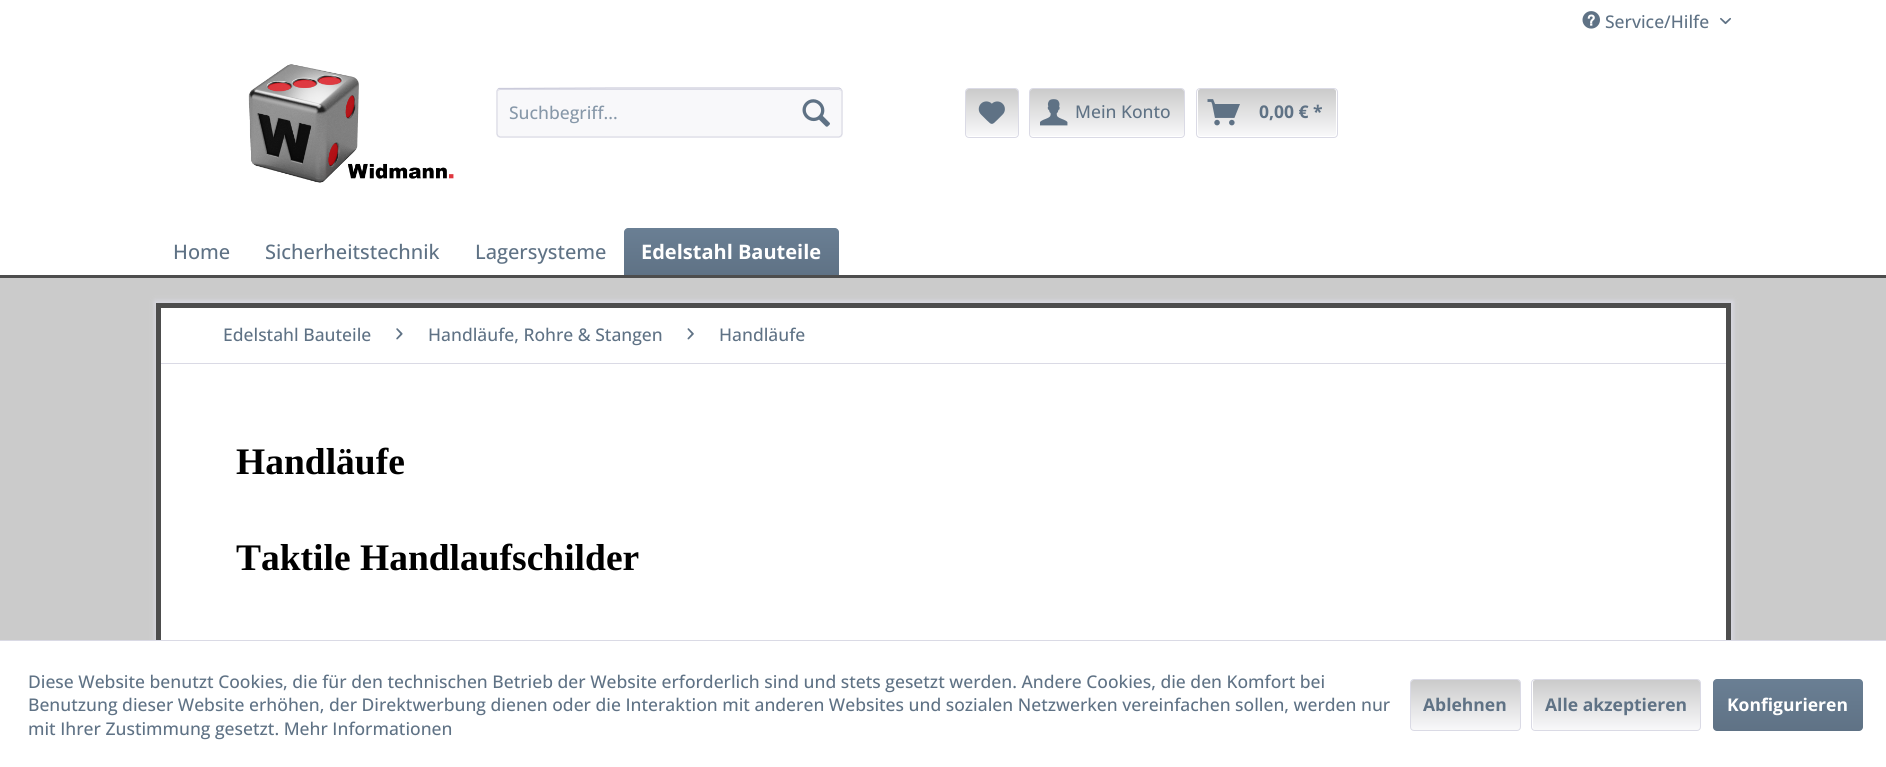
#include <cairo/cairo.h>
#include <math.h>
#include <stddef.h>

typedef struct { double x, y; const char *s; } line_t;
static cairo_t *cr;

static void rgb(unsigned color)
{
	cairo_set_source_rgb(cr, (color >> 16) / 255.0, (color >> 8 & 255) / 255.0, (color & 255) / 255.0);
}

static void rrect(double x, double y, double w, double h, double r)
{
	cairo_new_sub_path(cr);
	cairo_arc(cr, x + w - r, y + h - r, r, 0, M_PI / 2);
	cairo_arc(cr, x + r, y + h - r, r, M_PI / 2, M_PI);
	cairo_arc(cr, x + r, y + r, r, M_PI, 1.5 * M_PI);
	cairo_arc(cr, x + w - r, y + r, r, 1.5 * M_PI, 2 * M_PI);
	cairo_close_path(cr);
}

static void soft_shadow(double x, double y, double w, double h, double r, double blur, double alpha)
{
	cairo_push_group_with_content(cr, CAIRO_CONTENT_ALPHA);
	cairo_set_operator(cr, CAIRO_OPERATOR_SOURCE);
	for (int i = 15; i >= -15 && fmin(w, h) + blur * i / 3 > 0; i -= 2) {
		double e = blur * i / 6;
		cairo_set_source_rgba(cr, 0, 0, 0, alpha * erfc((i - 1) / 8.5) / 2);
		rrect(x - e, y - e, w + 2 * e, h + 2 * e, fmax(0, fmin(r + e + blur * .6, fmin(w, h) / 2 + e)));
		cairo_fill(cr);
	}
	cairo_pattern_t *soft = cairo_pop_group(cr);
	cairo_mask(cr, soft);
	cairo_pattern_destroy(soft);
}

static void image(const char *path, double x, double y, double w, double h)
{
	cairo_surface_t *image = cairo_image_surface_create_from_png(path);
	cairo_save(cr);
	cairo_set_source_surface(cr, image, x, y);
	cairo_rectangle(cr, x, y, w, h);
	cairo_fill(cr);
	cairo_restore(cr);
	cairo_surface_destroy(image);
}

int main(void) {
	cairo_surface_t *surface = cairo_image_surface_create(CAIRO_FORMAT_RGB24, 1886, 767);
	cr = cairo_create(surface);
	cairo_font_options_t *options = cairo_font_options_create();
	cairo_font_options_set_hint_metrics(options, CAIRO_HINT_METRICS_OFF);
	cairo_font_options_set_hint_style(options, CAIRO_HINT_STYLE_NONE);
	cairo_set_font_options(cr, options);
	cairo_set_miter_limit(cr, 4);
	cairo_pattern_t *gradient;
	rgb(0xcbcbcb);
	cairo_paint(cr);
	rgb(0xffffff);
	cairo_rectangle(cr, 0, 0, 1886, 275);
	cairo_fill(cr);
	image("img/1.png", 1582, 11, 18, 18);
	image("img/2.png", 1720, 17, 11, 8);
	image("img/3.png", 248, 64, 206, 119);
	rgb(0xf8f8fa);
	rrect(496, 88, 347, 50, 4);
	cairo_fill(cr);
	rgb(0xdadae5);
	cairo_new_path(cr);
	cairo_move_to(cr, 500, 90);
	cairo_line_to(cr, 839, 90);
	cairo_curve_to(cr, 840, 90, 841, 91, 841, 92);
	cairo_curve_to(cr, 841, 90, 840, 89, 838, 89);
	cairo_line_to(cr, 500, 89);
	cairo_curve_to(cr, 499, 89, 498, 90, 498, 92);
	cairo_curve_to(cr, 498, 91, 499, 90, 500, 90);
	cairo_close_path(cr);
	cairo_fill(cr);
	cairo_new_path(cr);
	cairo_move_to(cr, 498, 89);
	cairo_line_to(cr, 499, 88.5);
	cairo_line_to(cr, 613, 88);
	cairo_line_to(cr, 839, 88);
	cairo_line_to(cr, 841, 89);
	rgb(0xcbcbdb);
	cairo_set_line_width(cr, 1.2);
	cairo_stroke(cr);
	cairo_new_path(cr);
	cairo_move_to(cr, 841, 89);
	cairo_line_to(cr, 842, 91);
	cairo_line_to(cr, 842, 134);
	cairo_line_to(cr, 841, 136);
	cairo_line_to(cr, 839, 137);
	cairo_line_to(cr, 500, 137);
	cairo_line_to(cr, 498, 136);
	cairo_line_to(cr, 497, 134);
	cairo_line_to(cr, 497, 91);
	cairo_line_to(cr, 498, 89);
	rgb(0xdadae5);
	cairo_stroke(cr);
	image("img/4.png", 802, 99, 28, 28);
	gradient = cairo_pattern_create_linear(992, 89, 992, 136);
	cairo_pattern_add_color_stop_rgba(gradient, 0, 0.796, 0.796, 0.796, 1);
	cairo_pattern_add_color_stop_rgba(gradient, 1, 0.973, 0.973, 0.98, 1);
	cairo_set_source(cr, gradient);
	cairo_pattern_destroy(gradient);
	rrect(966, 89, 52, 47, 2.5);
	cairo_fill(cr);
	rrect(965.5, 88.5, 53, 49, 3.5);
	rgb(0xdadae5);
	cairo_set_line_width(cr, 1);
	cairo_stroke(cr);
	image("img/5.png", 978, 101, 27, 23);
	gradient = cairo_pattern_create_linear(1107, 89, 1107, 136);
	cairo_pattern_add_color_stop_rgba(gradient, 0, 0.796, 0.796, 0.796, 1);
	cairo_pattern_add_color_stop_rgba(gradient, 1, 0.973, 0.973, 0.98, 1);
	cairo_set_source(cr, gradient);
	cairo_pattern_destroy(gradient);
	rrect(1030, 89, 154, 47, 2.5);
	cairo_fill(cr);
	rrect(1029.5, 88.5, 155, 49, 3.5);
	rgb(0xdadae5);
	cairo_stroke(cr);
	image("img/6.png", 1040, 99, 28, 27);
	gradient = cairo_pattern_create_linear(1267, 89, 1267, 136);
	cairo_pattern_add_color_stop_rgba(gradient, 0, 0.796, 0.796, 0.796, 1);
	cairo_pattern_add_color_stop_rgba(gradient, 1, 0.973, 0.973, 0.98, 1);
	cairo_set_source(cr, gradient);
	cairo_pattern_destroy(gradient);
	rrect(1198, 89, 138, 47, 2.5);
	cairo_fill(cr);
	rrect(1196.5, 88.5, 141, 49, 3.5);
	rgb(0xdadae5);
	cairo_stroke(cr);
	image("img/7.png", 1207, 99, 33, 27);
	rgb(0x4d4d4d);
	cairo_rectangle(cr, 0, 275, 1886, 3);
	cairo_fill(cr);
	gradient = cairo_pattern_create_linear(731, 228, 731, 275);
	cairo_pattern_add_color_stop_rgba(gradient, 0, 0.416, 0.498, 0.58, 1);
	cairo_pattern_add_color_stop_rgba(gradient, 1, 0.373, 0.447, 0.522, 1);
	cairo_set_source(cr, gradient);
	cairo_pattern_destroy(gradient);
	cairo_new_path(cr);
	cairo_move_to(cr, 628, 228);
	cairo_line_to(cr, 835, 228);
	cairo_curve_to(cr, 837, 228, 839, 230, 839, 232);
	cairo_line_to(cr, 839, 275);
	cairo_line_to(cr, 624, 275);
	cairo_line_to(cr, 624, 232);
	cairo_curve_to(cr, 624, 230, 626, 228, 628, 228);
	cairo_close_path(cr);
	cairo_fill(cr);
	rgb(0xdadae5);
	soft_shadow(155, 301, 1578, 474, 0, 2.5, 1);
	rgb(0xffffff);
	cairo_rectangle(cr, 161, 308, 1565, 332);
	cairo_fill(cr);
	cairo_rectangle(cr, 158.5, 305.5, 1570, 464);
	rgb(0x4d4d4d);
	cairo_set_line_width(cr, 5);
	cairo_stroke(cr);
	rgb(0xdadae5);
	cairo_rectangle(cr, 161, 363, 1565, 1);
	cairo_fill(cr);
	image("img/8.png", 396, 328, 7, 12);
	image("img/9.png", 687, 328, 7, 12);
	rgb(0xffffff);
	cairo_rectangle(cr, 0, 641, 1886, 126);
	cairo_fill(cr);
	rgb(0xdadae5);
	cairo_rectangle(cr, 0, 640, 1886, 1);
	cairo_fill(cr);
	gradient = cairo_pattern_create_linear(1466, 680, 1466, 730);
	cairo_pattern_add_color_stop_rgba(gradient, 0, 0.796, 0.796, 0.796, 1);
	cairo_pattern_add_color_stop_rgba(gradient, 1, 0.973, 0.973, 0.98, 1);
	cairo_set_source(cr, gradient);
	cairo_pattern_destroy(gradient);
	rrect(1411, 680, 109, 50, 2.5);
	cairo_fill(cr);
	rrect(1410.5, 679.5, 110, 51, 3.5);
	rgb(0xdadae5);
	cairo_set_line_width(cr, 1);
	cairo_stroke(cr);
	gradient = cairo_pattern_create_linear(1616, 680, 1616, 730);
	cairo_pattern_add_color_stop_rgba(gradient, 0, 0.796, 0.796, 0.796, 1);
	cairo_pattern_add_color_stop_rgba(gradient, 1, 0.973, 0.973, 0.98, 1);
	cairo_set_source(cr, gradient);
	cairo_pattern_destroy(gradient);
	rrect(1533, 680, 167, 50, 2.5);
	cairo_fill(cr);
	rrect(1531.5, 679.5, 169, 51, 3.5);
	rgb(0xdadae5);
	cairo_stroke(cr);
	gradient = cairo_pattern_create_linear(1788, 679, 1788, 731);
	cairo_pattern_add_color_stop_rgba(gradient, 0, 0.416, 0.498, 0.58, 1);
	cairo_pattern_add_color_stop_rgba(gradient, 1, 0.373, 0.447, 0.522, 1);
	cairo_set_source(cr, gradient);
	cairo_pattern_destroy(gradient);
	rrect(1713, 679, 150, 52, 4);
	cairo_fill(cr);
	cairo_select_font_face(cr, "Open Sans Medium", CAIRO_FONT_SLANT_NORMAL, CAIRO_FONT_WEIGHT_NORMAL);
	cairo_set_font_size(cr, 17.5);
	rgb(0x5f7285);
	cairo_move_to(cr, 1605, 28);
	cairo_show_text(cr, "Service/Hilfe");
	rgb(0x8798a9);
	cairo_move_to(cr, 509, 119);
	cairo_show_text(cr, "Suchbegriff...");
	rgb(0x5f7285);
	cairo_move_to(cr, 1075, 118);
	cairo_show_text(cr, "Mein Konto");
	cairo_select_font_face(cr, "Open Sans", CAIRO_FONT_SLANT_NORMAL, CAIRO_FONT_WEIGHT_BOLD);
	cairo_move_to(cr, 1259, 118);
	cairo_show_text(cr, "0,00 € *");
	cairo_select_font_face(cr, "Open Sans Medium", CAIRO_FONT_SLANT_NORMAL, CAIRO_FONT_WEIGHT_NORMAL);
	cairo_set_font_size(cr, 20);
	{
		static const line_t items[] = {
			{173, 259, "Home"},
			{265, 259, "Sicherheitstechnik"},
			{475, 259, "Lagersysteme"},
		};
		for (size_t i = 0; i < sizeof items / sizeof *items; i++) {
			cairo_move_to(cr, items[i].x, items[i].y);
			cairo_show_text(cr, items[i].s);
		}
	}
	cairo_select_font_face(cr, "Open Sans", CAIRO_FONT_SLANT_NORMAL, CAIRO_FONT_WEIGHT_BOLD);
	rgb(0xffffff);
	cairo_move_to(cr, 641, 259);
	cairo_show_text(cr, "Edelstahl Bauteile");
	cairo_select_font_face(cr, "Open Sans Medium", CAIRO_FONT_SLANT_NORMAL, CAIRO_FONT_WEIGHT_NORMAL);
	cairo_set_font_size(cr, 17.5);
	rgb(0x5f7285);
	{
		static const line_t items[] = {
			{223, 341, "Edelstahl Bauteile"},
			{428, 341, "Handläufe, Rohre & Stangen"},
			{719, 341, "Handläufe"},
		};
		for (size_t i = 0; i < sizeof items / sizeof *items; i++) {
			cairo_move_to(cr, items[i].x, items[i].y);
			cairo_show_text(cr, items[i].s);
		}
	}
	cairo_select_font_face(cr, "Liberation Serif", CAIRO_FONT_SLANT_NORMAL, CAIRO_FONT_WEIGHT_BOLD);
	cairo_set_font_size(cr, 37.5);
	rgb(0x000000);
	cairo_move_to(cr, 236, 474);
	cairo_show_text(cr, "Handläufe");
	cairo_move_to(cr, 236, 570);
	cairo_show_text(cr, "Taktile Handlaufschilder");
	cairo_select_font_face(cr, "Open Sans Medium", CAIRO_FONT_SLANT_NORMAL, CAIRO_FONT_WEIGHT_NORMAL);
	cairo_set_font_size(cr, 17.5);
	rgb(0x5f7285);
	{
		static const line_t items[] = {
			{28, 688, "Diese Website benutzt Cookies, die für den technischen Betrieb der Website erforderlich sind und stets gesetzt werden. Andere Cookies, die den Komfort bei"},
			{28, 711, "Benutzung dieser Website erhöhen, der Direktwerbung dienen oder die Interaktion mit anderen Websites und sozialen Netzwerken vereinfachen sollen, werden nur"},
			{28, 735, "mit Ihrer Zustimmung gesetzt. Mehr Informationen"},
		};
		for (size_t i = 0; i < sizeof items / sizeof *items; i++) {
			cairo_move_to(cr, items[i].x, items[i].y);
			cairo_show_text(cr, items[i].s);
		}
	}
	cairo_select_font_face(cr, "Open Sans", CAIRO_FONT_SLANT_NORMAL, CAIRO_FONT_WEIGHT_BOLD);
	cairo_move_to(cr, 1423, 711);
	cairo_show_text(cr, "Ablehnen");
	cairo_move_to(cr, 1545, 711);
	cairo_show_text(cr, "Alle akzeptieren");
	rgb(0xffffff);
	cairo_move_to(cr, 1727, 711);
	cairo_show_text(cr, "Konfigurieren");
	cairo_surface_write_to_png(surface, "page.png");
	cairo_font_options_destroy(options);
	cairo_destroy(cr);
	cairo_surface_destroy(surface);
	return 0;
}
